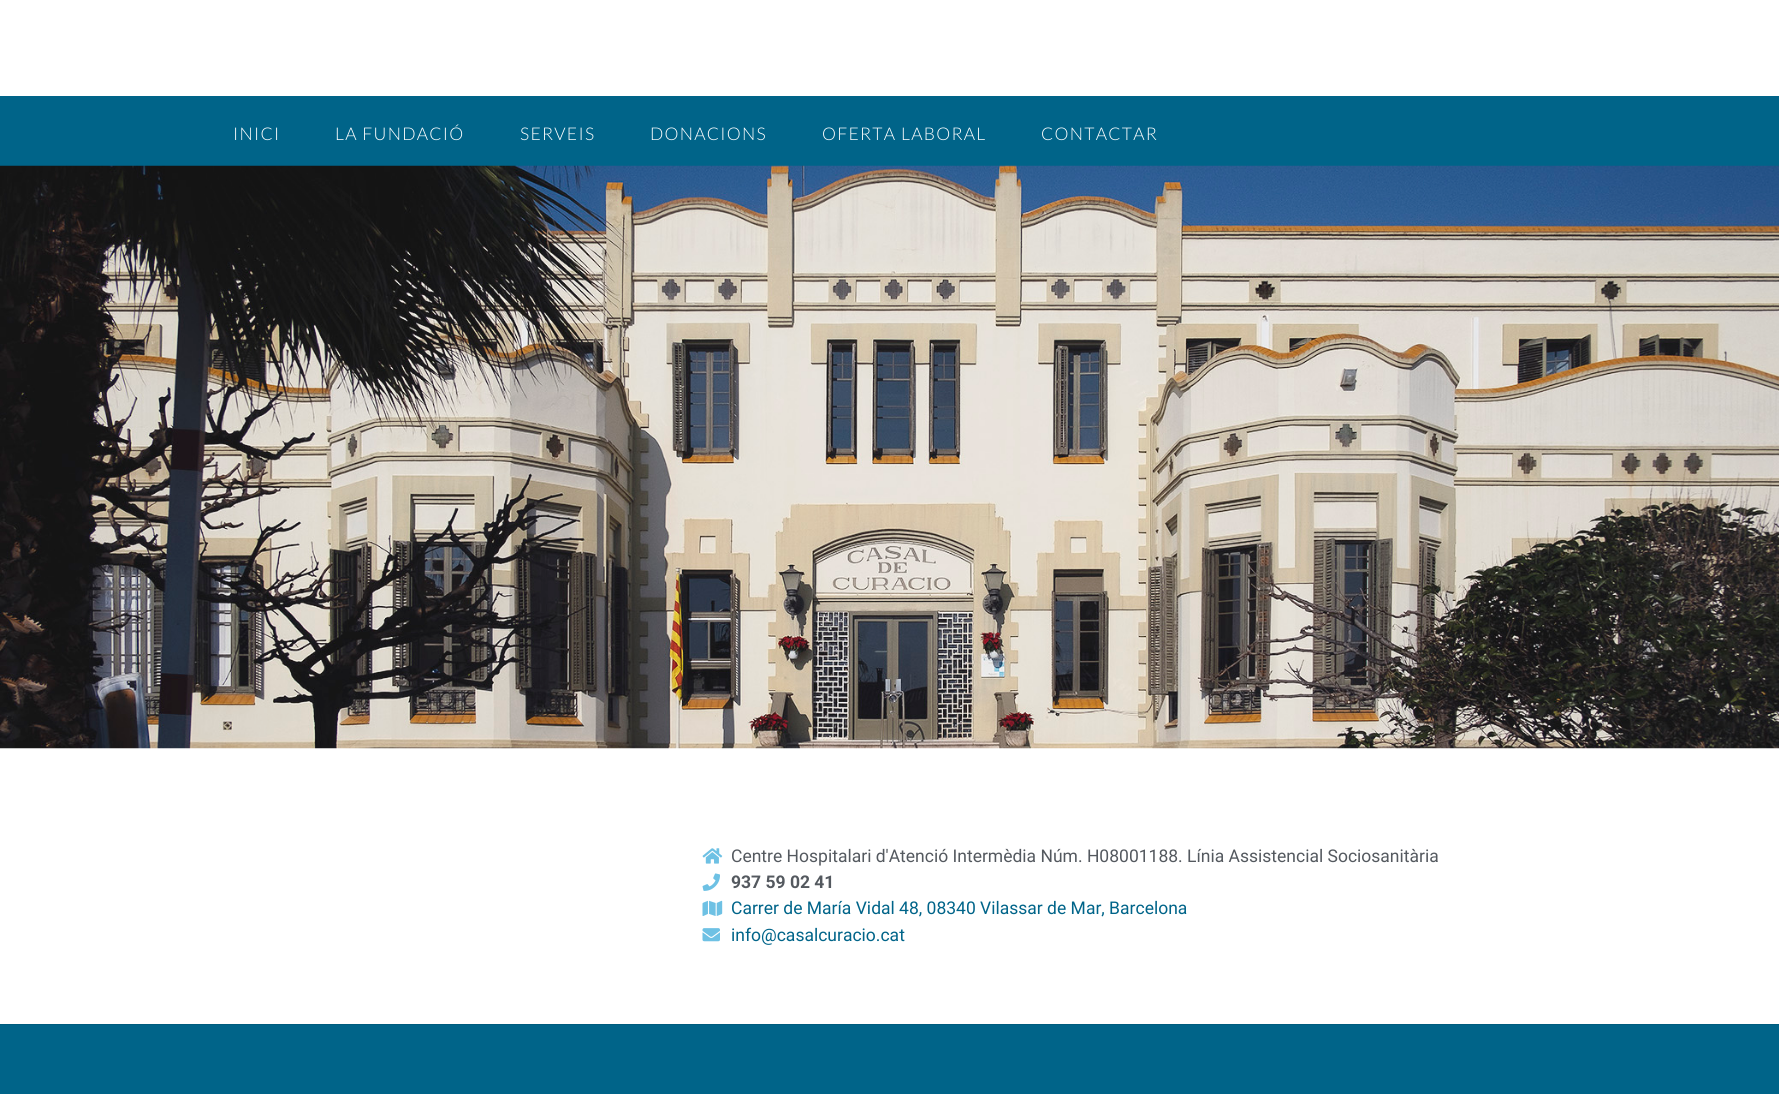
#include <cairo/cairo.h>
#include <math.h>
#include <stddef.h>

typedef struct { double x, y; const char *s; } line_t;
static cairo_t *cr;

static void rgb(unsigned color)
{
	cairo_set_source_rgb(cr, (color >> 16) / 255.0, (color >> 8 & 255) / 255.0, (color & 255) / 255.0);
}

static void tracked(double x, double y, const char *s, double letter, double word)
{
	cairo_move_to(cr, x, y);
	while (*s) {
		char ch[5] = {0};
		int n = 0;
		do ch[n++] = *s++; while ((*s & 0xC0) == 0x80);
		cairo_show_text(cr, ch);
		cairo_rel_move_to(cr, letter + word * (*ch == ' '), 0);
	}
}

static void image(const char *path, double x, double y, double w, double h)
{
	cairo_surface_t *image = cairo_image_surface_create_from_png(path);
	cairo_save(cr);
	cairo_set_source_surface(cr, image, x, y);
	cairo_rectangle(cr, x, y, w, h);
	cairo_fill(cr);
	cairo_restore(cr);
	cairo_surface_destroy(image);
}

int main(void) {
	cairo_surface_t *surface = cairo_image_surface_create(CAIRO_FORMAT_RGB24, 1779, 1094);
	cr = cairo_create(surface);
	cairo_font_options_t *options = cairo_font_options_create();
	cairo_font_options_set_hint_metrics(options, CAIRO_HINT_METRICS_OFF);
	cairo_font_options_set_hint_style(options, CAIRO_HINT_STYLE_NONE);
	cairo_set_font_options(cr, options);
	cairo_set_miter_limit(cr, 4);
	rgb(0xffffff);
	cairo_paint(cr);
	rgb(0x006489);
	cairo_rectangle(cr, 0, 96, 1779, 70);
	cairo_fill(cr);
	image("img/1.png", 0, 165, 1779, 584);
	image("img/2.png", 702, 848, 21, 16);
	image("img/3.png", 702, 873, 18, 18);
	image("img/4.png", 702, 900, 21, 16);
	image("img/5.png", 702, 928, 18, 14);
	cairo_rectangle(cr, 0, 1025, 1779, 69);
	cairo_fill(cr);
	rgb(0x005c7e);
	cairo_rectangle(cr, 0, 1024, 1779, 1);
	cairo_fill(cr);
	cairo_select_font_face(cr, "Lato Light", CAIRO_FONT_SLANT_NORMAL, CAIRO_FONT_WEIGHT_NORMAL);
	cairo_set_font_size(cr, 17.5);
	rgb(0xffffff);
	{
		static const line_t items[] = {
			{233, 140, "INICI"},
			{335, 140, "LA FUNDACIÓ"},
			{520, 140, "SERVEIS"},
			{650, 140, "DONACIONS"},
			{822, 140, "OFERTA LABORAL"},
			{1041, 140, "CONTACTAR"},
		};
		for (size_t i = 0; i < sizeof items / sizeof *items; i++) {
			tracked(items[i].x, items[i].y, items[i].s, 1.25, 0);
		}
	}
	cairo_select_font_face(cr, "Roboto", CAIRO_FONT_SLANT_NORMAL, CAIRO_FONT_WEIGHT_NORMAL);
	rgb(0x54595f);
	cairo_move_to(cr, 731, 862);
	cairo_show_text(cr, "Centre Hospitalari d'Atenció Intermèdia Núm. H08001188. Línia Assistencial Sociosanitària");
	cairo_select_font_face(cr, "Roboto", CAIRO_FONT_SLANT_NORMAL, CAIRO_FONT_WEIGHT_BOLD);
	cairo_move_to(cr, 731, 888);
	cairo_show_text(cr, "937 59 02 41");
	cairo_select_font_face(cr, "Roboto", CAIRO_FONT_SLANT_NORMAL, CAIRO_FONT_WEIGHT_NORMAL);
	rgb(0x006489);
	cairo_move_to(cr, 731, 914);
	cairo_show_text(cr, "Carrer de María Vidal 48, 08340 Vilassar de Mar, Barcelona");
	cairo_move_to(cr, 731, 941);
	cairo_show_text(cr, "info@casalcuracio.cat");
	cairo_surface_write_to_png(surface, "page.png");
	cairo_font_options_destroy(options);
	cairo_destroy(cr);
	cairo_surface_destroy(surface);
	return 0;
}
